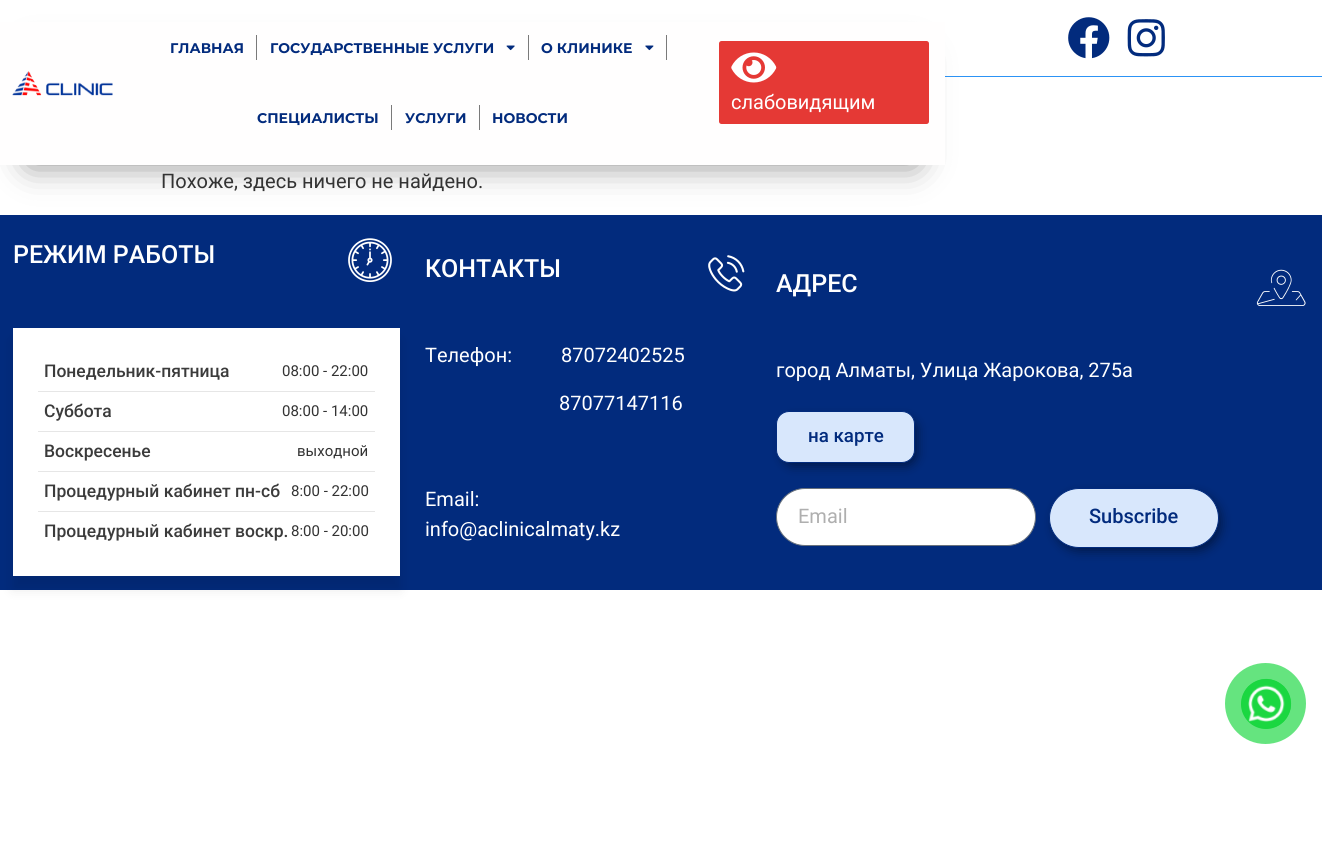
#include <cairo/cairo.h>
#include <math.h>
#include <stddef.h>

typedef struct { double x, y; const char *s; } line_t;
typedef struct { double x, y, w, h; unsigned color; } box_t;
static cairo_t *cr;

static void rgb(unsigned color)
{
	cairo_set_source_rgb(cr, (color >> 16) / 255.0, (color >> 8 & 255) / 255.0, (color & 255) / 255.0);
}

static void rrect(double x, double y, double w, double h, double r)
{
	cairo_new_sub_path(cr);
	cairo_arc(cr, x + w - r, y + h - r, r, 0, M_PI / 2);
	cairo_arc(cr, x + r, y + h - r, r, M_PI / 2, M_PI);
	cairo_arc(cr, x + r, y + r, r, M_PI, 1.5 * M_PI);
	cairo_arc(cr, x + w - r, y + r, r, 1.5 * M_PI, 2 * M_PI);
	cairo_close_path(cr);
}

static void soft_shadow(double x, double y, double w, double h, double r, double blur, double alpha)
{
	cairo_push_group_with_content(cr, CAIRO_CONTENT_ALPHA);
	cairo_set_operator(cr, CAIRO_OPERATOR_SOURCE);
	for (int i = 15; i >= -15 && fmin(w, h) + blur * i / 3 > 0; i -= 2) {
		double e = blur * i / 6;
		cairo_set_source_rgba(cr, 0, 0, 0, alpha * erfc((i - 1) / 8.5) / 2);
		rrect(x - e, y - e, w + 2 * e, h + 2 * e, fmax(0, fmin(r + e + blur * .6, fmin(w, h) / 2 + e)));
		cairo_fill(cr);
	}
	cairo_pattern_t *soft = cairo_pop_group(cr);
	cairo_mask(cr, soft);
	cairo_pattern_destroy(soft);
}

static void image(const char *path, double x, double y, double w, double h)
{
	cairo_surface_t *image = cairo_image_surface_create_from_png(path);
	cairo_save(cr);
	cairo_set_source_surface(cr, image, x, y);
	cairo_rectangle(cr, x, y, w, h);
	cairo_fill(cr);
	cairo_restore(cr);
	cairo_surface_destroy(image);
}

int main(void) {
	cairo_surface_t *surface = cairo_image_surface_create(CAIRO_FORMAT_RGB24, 1322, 843);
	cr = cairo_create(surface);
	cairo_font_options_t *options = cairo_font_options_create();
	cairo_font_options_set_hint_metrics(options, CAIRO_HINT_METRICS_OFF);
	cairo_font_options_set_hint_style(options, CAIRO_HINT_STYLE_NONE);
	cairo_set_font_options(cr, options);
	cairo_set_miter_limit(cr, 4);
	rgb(0xffffff);
	cairo_paint(cr);
	rgb(0x2c93f5);
	cairo_rectangle(cr, 945, 76, 377, 1);
	cairo_fill(cr);
	rgb(0x022b7d);
	cairo_rectangle(cr, 0, 215, 1322, 375);
	cairo_fill(cr);
	rgb(0x000000);
	soft_shadow(30, 58, 885, 105, 0, 17.5, 0.5);
	rgb(0xfffefe);
	cairo_rectangle(cr, 0, 22, 945, 143);
	cairo_fill(cr);
	image("img/1.png", 12, 71, 101, 25);
	rgb(0x7a7a7a);
	cairo_rectangle(cr, 256, 35, 1, 25);
	cairo_fill(cr);
	image("img/2.png", 506, 45, 9, 6);
	cairo_rectangle(cr, 528, 35, 1, 25);
	cairo_fill(cr);
	image("img/3.png", 645, 45, 9, 6);
	{
		static const box_t items[] = {
			{666, 35, 1, 25, 0x7a7a7a},
			{391, 105, 1, 25, 0x7a7a7a},
			{479, 105, 1, 25, 0x7a7a7a},
		};
		for (size_t i = 0; i < sizeof items / sizeof *items; i++) {
			rgb(items[i].color);
			cairo_rectangle(cr, items[i].x, items[i].y, items[i].w, items[i].h);
			cairo_fill(cr);
		}
	}
	rgb(0xe53935);
	rrect(719, 41, 210, 83, 2.5);
	cairo_fill(cr);
	image("img/4.png", 731, 52, 46, 31);
	image("img/5.png", 1068, 17, 42, 42);
	image("img/6.png", 1127, 19, 38, 38);
	image("img/7.png", 348, 238, 44, 44);
	rgb(0x000000);
	soft_shadow(13, 340, 387, 249, 0, 6, 0.1);
	{
		static const box_t items[] = {
			{13, 328, 387, 248, 0xffffff},
			{38, 391, 337, 1, 0xe6e6e6},
			{38, 431, 337, 1, 0xe6e6e6},
			{38, 471, 337, 1, 0xe6e6e6},
			{38, 511, 337, 1, 0xe6e6e6},
		};
		for (size_t i = 0; i < sizeof items / sizeof *items; i++) {
			rgb(items[i].color);
			cairo_rectangle(cr, items[i].x, items[i].y, items[i].w, items[i].h);
			cairo_fill(cr);
		}
	}
	image("img/8.png", 708, 255, 37, 37);
	image("img/9.png", 1256, 269, 50, 37);
	rgb(0x000000);
	soft_shadow(783, 419, 133, 46, 10, 6, 0.5);
	rgb(0xd8e7fc);
	rrect(776.5, 411.5, 138, 51, 12.5);
	cairo_fill_preserve(cr);
	rgb(0x022b7d);
	cairo_set_line_width(cr, 1);
	cairo_stroke(cr);
	rgb(0xffffff);
	rrect(776.5, 488.5, 259, 57, 28.5);
	cairo_fill_preserve(cr);
	rgb(0x69727d);
	cairo_stroke(cr);
	rgb(0x000000);
	soft_shadow(1055, 495, 165, 55, 27.5, 6, 0.5);
	rgb(0xd8e7fc);
	rrect(1049.5, 488.5, 169, 59, 29.5);
	cairo_fill_preserve(cr);
	rgb(0x022b7d);
	cairo_stroke(cr);
	rgb(0x65e47f);
	cairo_arc(cr, 1265.5, 703.5, 40.5, 0, 2 * M_PI);
	cairo_fill(cr);
	rgb(0x1cd741);
	cairo_arc(cr, 1266, 704, 25, 0, 2 * M_PI);
	cairo_fill(cr);
	image("img/10.png", 1241, 678, 51, 51);
	cairo_select_font_face(cr, "Montserrat", CAIRO_FONT_SLANT_NORMAL, CAIRO_FONT_WEIGHT_BOLD);
	cairo_set_font_size(cr, 14);
	rgb(0x022b7d);
	{
		static const line_t items[] = {
			{170, 53, "ГЛАВНАЯ"},
			{270, 53, "ГОСУДАРСТВЕННЫЕ УСЛУГИ"},
			{541, 53, "О КЛИНИКЕ"},
			{257, 123, "СПЕЦИАЛИСТЫ"},
			{405, 123, "УСЛУГИ"},
			{492, 123, "НОВОСТИ"},
		};
		for (size_t i = 0; i < sizeof items / sizeof *items; i++) {
			cairo_move_to(cr, items[i].x, items[i].y);
			cairo_show_text(cr, items[i].s);
		}
	}
	cairo_select_font_face(cr, "Roboto", CAIRO_FONT_SLANT_NORMAL, CAIRO_FONT_WEIGHT_NORMAL);
	cairo_set_font_size(cr, 20);
	rgb(0xffffff);
	cairo_move_to(cr, 731, 109);
	cairo_show_text(cr, "слабовидящим");
	rgb(0x333333);
	cairo_move_to(cr, 161, 188);
	cairo_show_text(cr, "Похоже, здесь ничего не найдено.");
	cairo_select_font_face(cr, "Roboto Medium", CAIRO_FONT_SLANT_NORMAL, CAIRO_FONT_WEIGHT_NORMAL);
	cairo_set_font_size(cr, 25);
	rgb(0xffffff);
	cairo_move_to(cr, 13, 263);
	cairo_show_text(cr, "РЕЖИМ РАБОТЫ");
	cairo_set_font_size(cr, 17.5);
	rgb(0x3b3b3b);
	cairo_move_to(cr, 44, 377);
	cairo_show_text(cr, "Понедельник-пятница");
	cairo_select_font_face(cr, "Roboto", CAIRO_FONT_SLANT_NORMAL, CAIRO_FONT_WEIGHT_NORMAL);
	cairo_set_font_size(cr, 15);
	rgb(0x333333);
	cairo_move_to(cr, 282, 376);
	cairo_show_text(cr, "08:00 - 22:00");
	cairo_select_font_face(cr, "Roboto Medium", CAIRO_FONT_SLANT_NORMAL, CAIRO_FONT_WEIGHT_NORMAL);
	cairo_set_font_size(cr, 17.5);
	rgb(0x3b3b3b);
	cairo_move_to(cr, 44, 417);
	cairo_show_text(cr, "Суббота");
	cairo_select_font_face(cr, "Roboto", CAIRO_FONT_SLANT_NORMAL, CAIRO_FONT_WEIGHT_NORMAL);
	cairo_set_font_size(cr, 15);
	rgb(0x333333);
	cairo_move_to(cr, 282, 416);
	cairo_show_text(cr, "08:00 - 14:00");
	cairo_select_font_face(cr, "Roboto Medium", CAIRO_FONT_SLANT_NORMAL, CAIRO_FONT_WEIGHT_NORMAL);
	cairo_set_font_size(cr, 17.5);
	rgb(0x3b3b3b);
	cairo_move_to(cr, 44, 457);
	cairo_show_text(cr, "Воскресенье");
	cairo_select_font_face(cr, "Roboto", CAIRO_FONT_SLANT_NORMAL, CAIRO_FONT_WEIGHT_NORMAL);
	cairo_set_font_size(cr, 15);
	rgb(0x333333);
	cairo_move_to(cr, 297, 456);
	cairo_show_text(cr, "выходной");
	cairo_select_font_face(cr, "Roboto Medium", CAIRO_FONT_SLANT_NORMAL, CAIRO_FONT_WEIGHT_NORMAL);
	cairo_set_font_size(cr, 17.5);
	rgb(0x3b3b3b);
	cairo_move_to(cr, 44, 497);
	cairo_show_text(cr, "Процедурный кабинет пн-сб");
	cairo_select_font_face(cr, "Roboto", CAIRO_FONT_SLANT_NORMAL, CAIRO_FONT_WEIGHT_NORMAL);
	cairo_set_font_size(cr, 15);
	rgb(0x333333);
	cairo_move_to(cr, 291, 496);
	cairo_show_text(cr, "8:00 - 22:00");
	cairo_select_font_face(cr, "Roboto Medium", CAIRO_FONT_SLANT_NORMAL, CAIRO_FONT_WEIGHT_NORMAL);
	cairo_set_font_size(cr, 17.5);
	rgb(0x3b3b3b);
	cairo_move_to(cr, 44, 537);
	cairo_show_text(cr, "Процедурный кабинет воскр.");
	cairo_select_font_face(cr, "Roboto", CAIRO_FONT_SLANT_NORMAL, CAIRO_FONT_WEIGHT_NORMAL);
	cairo_set_font_size(cr, 15);
	rgb(0x333333);
	cairo_move_to(cr, 291, 536);
	cairo_show_text(cr, "8:00 - 20:00");
	cairo_select_font_face(cr, "Roboto Medium", CAIRO_FONT_SLANT_NORMAL, CAIRO_FONT_WEIGHT_NORMAL);
	cairo_set_font_size(cr, 25);
	rgb(0xffffff);
	cairo_move_to(cr, 425, 277);
	cairo_show_text(cr, "КОНТАКТЫ");
	cairo_select_font_face(cr, "Roboto", CAIRO_FONT_SLANT_NORMAL, CAIRO_FONT_WEIGHT_NORMAL);
	cairo_set_font_size(cr, 20);
	{
		static const line_t items[] = {
			{425, 362, "Телефон:"},
			{561, 362, "87072402525"},
			{559, 410, "87077147116"},
			{425, 506, "Email:"},
			{425, 536, "info@aclinicalmaty.kz"},
		};
		for (size_t i = 0; i < sizeof items / sizeof *items; i++) {
			cairo_move_to(cr, items[i].x, items[i].y);
			cairo_show_text(cr, items[i].s);
		}
	}
	cairo_select_font_face(cr, "Roboto Medium", CAIRO_FONT_SLANT_NORMAL, CAIRO_FONT_WEIGHT_NORMAL);
	cairo_set_font_size(cr, 25);
	cairo_move_to(cr, 776, 292);
	cairo_show_text(cr, "АДРЕС");
	cairo_select_font_face(cr, "Roboto", CAIRO_FONT_SLANT_NORMAL, CAIRO_FONT_WEIGHT_NORMAL);
	cairo_set_font_size(cr, 20);
	cairo_move_to(cr, 776, 377);
	cairo_show_text(cr, "город Алматы, Улица Жарокова, 275а");
	cairo_select_font_face(cr, "Roboto Medium", CAIRO_FONT_SLANT_NORMAL, CAIRO_FONT_WEIGHT_NORMAL);
	cairo_set_font_size(cr, 18.75);
	rgb(0x022b7d);
	cairo_move_to(cr, 808, 442);
	cairo_show_text(cr, "на карте");
	cairo_select_font_face(cr, "Roboto", CAIRO_FONT_SLANT_NORMAL, CAIRO_FONT_WEIGHT_NORMAL);
	cairo_set_font_size(cr, 20);
	rgb(0xafafaf);
	cairo_move_to(cr, 798, 523);
	cairo_show_text(cr, "Email");
	cairo_select_font_face(cr, "Roboto Medium", CAIRO_FONT_SLANT_NORMAL, CAIRO_FONT_WEIGHT_NORMAL);
	rgb(0x022b7d);
	cairo_move_to(cr, 1089, 523);
	cairo_show_text(cr, "Subscribe");
	cairo_surface_write_to_png(surface, "page.png");
	cairo_font_options_destroy(options);
	cairo_destroy(cr);
	cairo_surface_destroy(surface);
	return 0;
}
